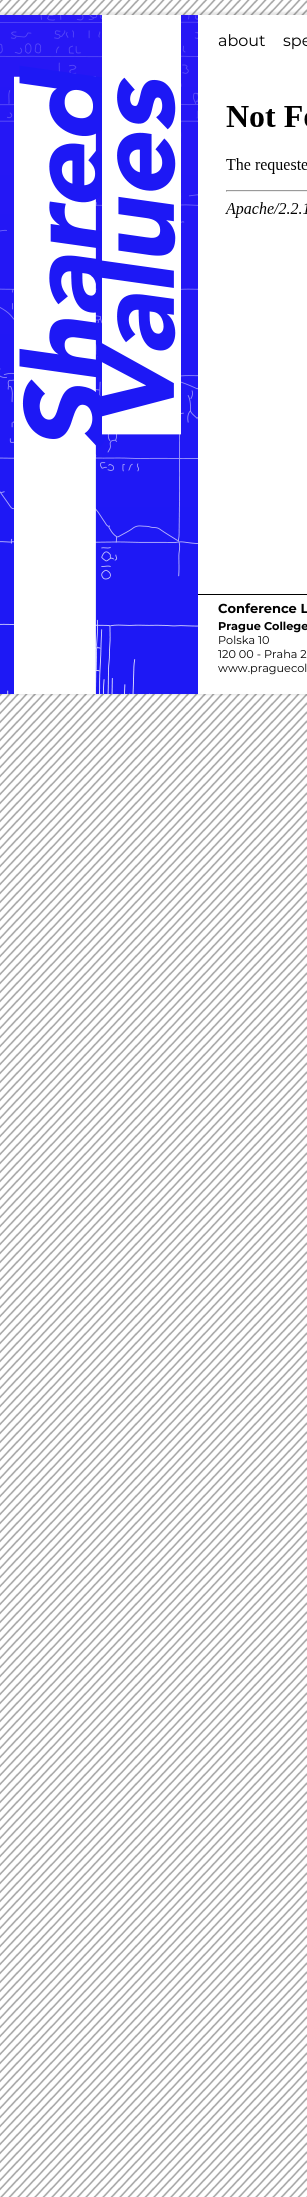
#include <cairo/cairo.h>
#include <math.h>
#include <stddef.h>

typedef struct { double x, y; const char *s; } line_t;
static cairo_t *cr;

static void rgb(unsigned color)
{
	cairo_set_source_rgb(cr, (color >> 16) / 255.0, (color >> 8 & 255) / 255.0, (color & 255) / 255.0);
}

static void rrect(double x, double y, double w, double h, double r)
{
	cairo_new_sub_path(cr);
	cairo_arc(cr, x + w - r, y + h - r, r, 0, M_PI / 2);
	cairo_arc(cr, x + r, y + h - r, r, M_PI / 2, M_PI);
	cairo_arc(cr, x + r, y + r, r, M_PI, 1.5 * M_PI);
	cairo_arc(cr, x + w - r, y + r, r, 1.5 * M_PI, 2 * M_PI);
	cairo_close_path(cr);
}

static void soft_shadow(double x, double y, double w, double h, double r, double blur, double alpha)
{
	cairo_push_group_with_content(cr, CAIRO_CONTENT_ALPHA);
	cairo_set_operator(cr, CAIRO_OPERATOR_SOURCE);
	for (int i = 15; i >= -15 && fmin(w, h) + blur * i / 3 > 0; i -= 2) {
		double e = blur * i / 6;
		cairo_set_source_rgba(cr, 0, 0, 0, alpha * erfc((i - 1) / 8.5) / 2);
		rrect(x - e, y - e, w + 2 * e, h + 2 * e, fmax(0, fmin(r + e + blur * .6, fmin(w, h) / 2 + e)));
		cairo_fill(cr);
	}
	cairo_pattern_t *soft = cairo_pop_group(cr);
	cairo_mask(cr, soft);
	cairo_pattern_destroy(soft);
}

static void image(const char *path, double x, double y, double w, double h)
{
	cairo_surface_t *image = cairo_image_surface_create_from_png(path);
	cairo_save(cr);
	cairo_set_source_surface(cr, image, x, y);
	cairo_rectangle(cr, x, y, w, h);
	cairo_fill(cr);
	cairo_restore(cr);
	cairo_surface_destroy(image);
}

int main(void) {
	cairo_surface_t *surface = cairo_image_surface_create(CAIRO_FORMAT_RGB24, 307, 2197);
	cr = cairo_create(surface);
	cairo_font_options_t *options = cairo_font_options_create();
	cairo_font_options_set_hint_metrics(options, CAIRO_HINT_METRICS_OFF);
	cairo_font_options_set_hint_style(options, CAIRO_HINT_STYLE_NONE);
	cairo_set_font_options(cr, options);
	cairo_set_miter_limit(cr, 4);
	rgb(0xffffff);
	cairo_paint(cr);
	image("img/1.png", 0, 0, 307, 2197);
	rgb(0x000000);
	soft_shadow(-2, 12, 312, 683, 0, 1, 0.1);
	image("img/2.png", 0, 15, 198, 679);
	rgb(0xffffff);
	cairo_rectangle(cr, 198, 15, 109, 679);
	cairo_fill(cr);
	image("img/3.png", 225, 106, 82, 112);
	rgb(0x000000);
	cairo_rectangle(cr, 198, 594, 109, 1);
	cairo_fill(cr);
	cairo_select_font_face(cr, "Montserrat", CAIRO_FONT_SLANT_NORMAL, CAIRO_FONT_WEIGHT_NORMAL);
	cairo_set_font_size(cr, 16);
	cairo_move_to(cr, 218, 46);
	cairo_show_text(cr, "about");
	cairo_move_to(cr, 283, 46);
	cairo_show_text(cr, "spe");
	cairo_select_font_face(cr, "Montserrat", CAIRO_FONT_SLANT_NORMAL, CAIRO_FONT_WEIGHT_BOLD);
	cairo_set_font_size(cr, 13);
	cairo_move_to(cr, 218, 613);
	cairo_show_text(cr, "Conference L");
	cairo_set_font_size(cr, 11.25);
	cairo_move_to(cr, 218, 630);
	cairo_show_text(cr, "Prague College");
	cairo_select_font_face(cr, "Montserrat", CAIRO_FONT_SLANT_NORMAL, CAIRO_FONT_WEIGHT_NORMAL);
	{
		static const line_t items[] = {
			{218, 644, "Polska 10"},
			{218, 658, "120 00 - Praha 2"},
			{218, 672, "www.praguecol"},
		};
		for (size_t i = 0; i < sizeof items / sizeof *items; i++) {
			cairo_move_to(cr, items[i].x, items[i].y);
			cairo_show_text(cr, items[i].s);
		}
	}
	cairo_surface_write_to_png(surface, "page.png");
	cairo_font_options_destroy(options);
	cairo_destroy(cr);
	cairo_surface_destroy(surface);
	return 0;
}
